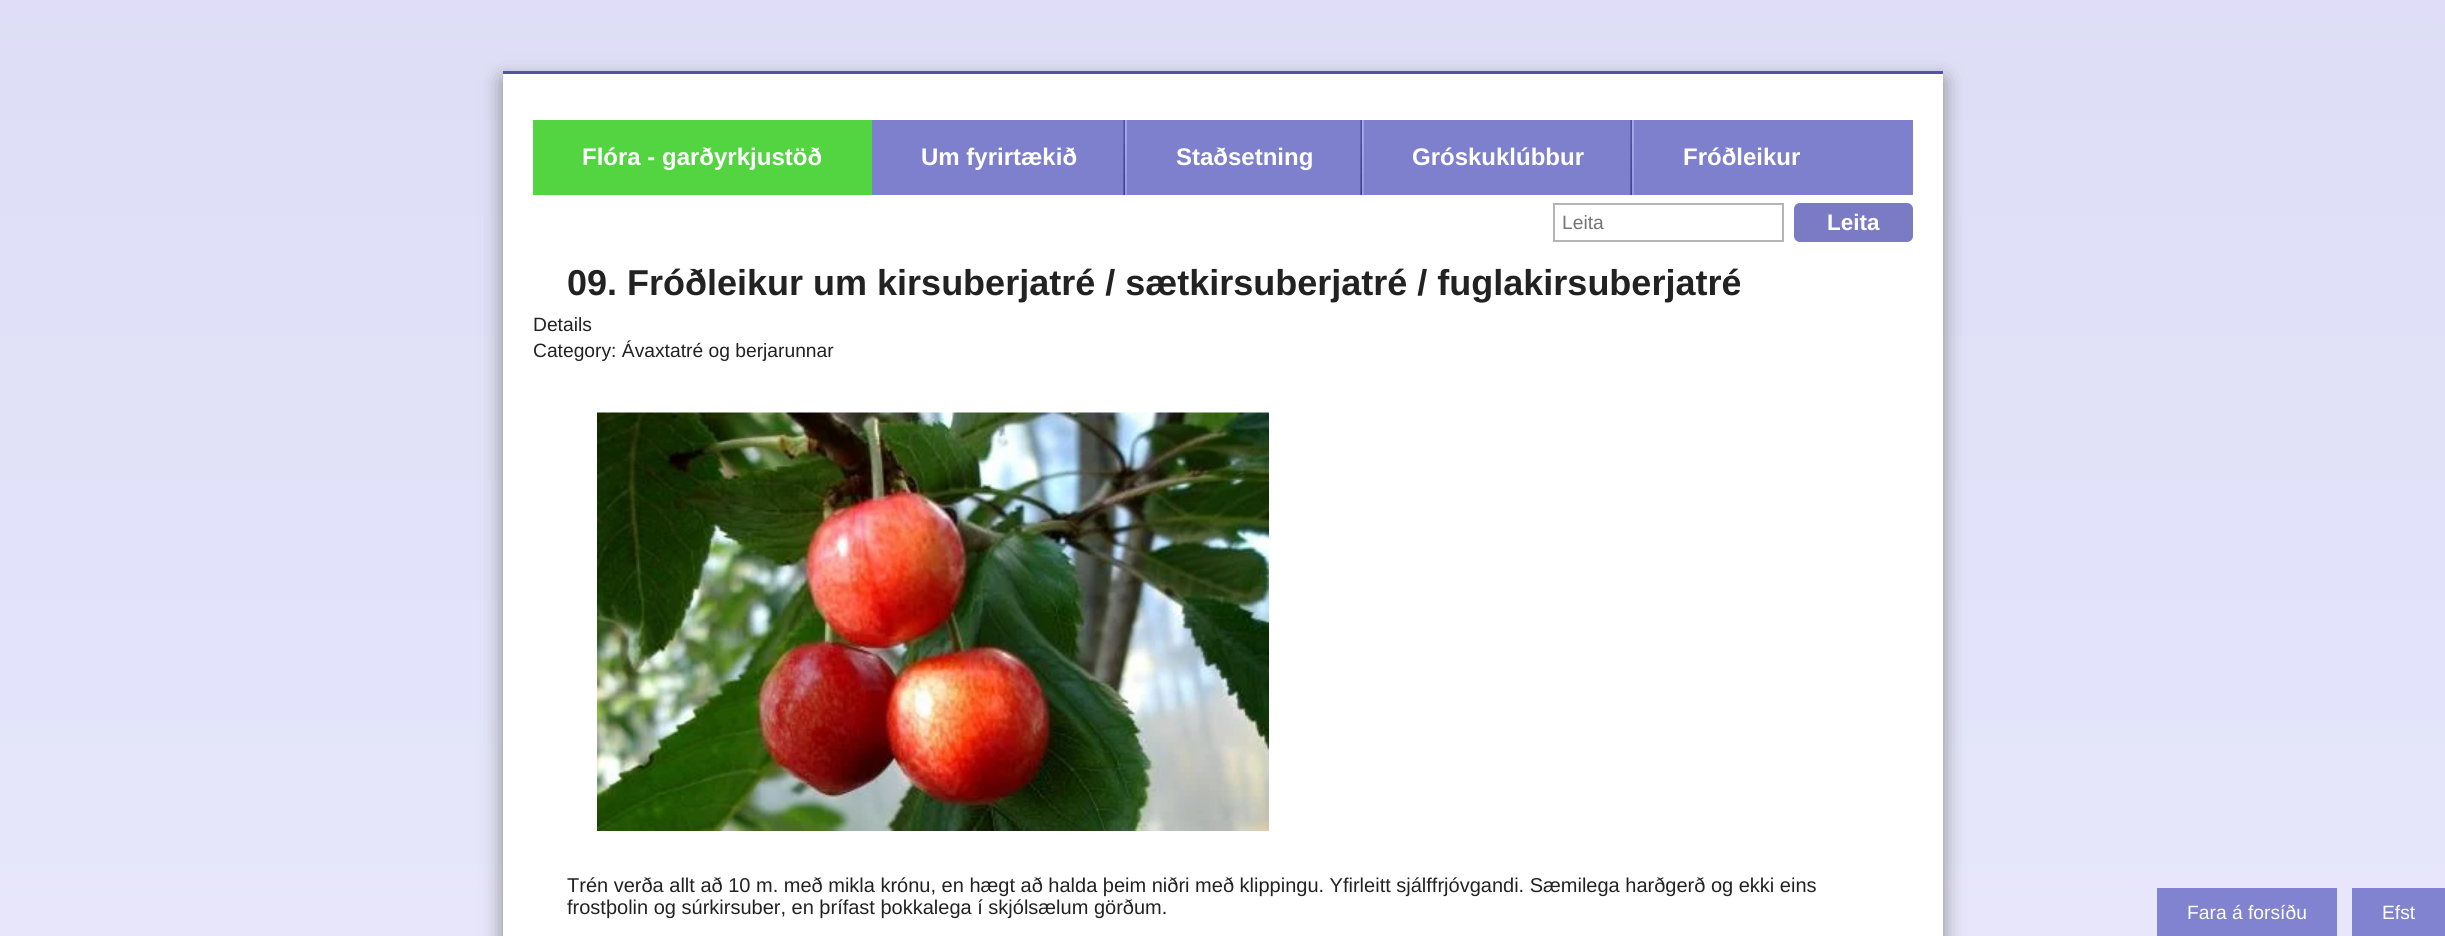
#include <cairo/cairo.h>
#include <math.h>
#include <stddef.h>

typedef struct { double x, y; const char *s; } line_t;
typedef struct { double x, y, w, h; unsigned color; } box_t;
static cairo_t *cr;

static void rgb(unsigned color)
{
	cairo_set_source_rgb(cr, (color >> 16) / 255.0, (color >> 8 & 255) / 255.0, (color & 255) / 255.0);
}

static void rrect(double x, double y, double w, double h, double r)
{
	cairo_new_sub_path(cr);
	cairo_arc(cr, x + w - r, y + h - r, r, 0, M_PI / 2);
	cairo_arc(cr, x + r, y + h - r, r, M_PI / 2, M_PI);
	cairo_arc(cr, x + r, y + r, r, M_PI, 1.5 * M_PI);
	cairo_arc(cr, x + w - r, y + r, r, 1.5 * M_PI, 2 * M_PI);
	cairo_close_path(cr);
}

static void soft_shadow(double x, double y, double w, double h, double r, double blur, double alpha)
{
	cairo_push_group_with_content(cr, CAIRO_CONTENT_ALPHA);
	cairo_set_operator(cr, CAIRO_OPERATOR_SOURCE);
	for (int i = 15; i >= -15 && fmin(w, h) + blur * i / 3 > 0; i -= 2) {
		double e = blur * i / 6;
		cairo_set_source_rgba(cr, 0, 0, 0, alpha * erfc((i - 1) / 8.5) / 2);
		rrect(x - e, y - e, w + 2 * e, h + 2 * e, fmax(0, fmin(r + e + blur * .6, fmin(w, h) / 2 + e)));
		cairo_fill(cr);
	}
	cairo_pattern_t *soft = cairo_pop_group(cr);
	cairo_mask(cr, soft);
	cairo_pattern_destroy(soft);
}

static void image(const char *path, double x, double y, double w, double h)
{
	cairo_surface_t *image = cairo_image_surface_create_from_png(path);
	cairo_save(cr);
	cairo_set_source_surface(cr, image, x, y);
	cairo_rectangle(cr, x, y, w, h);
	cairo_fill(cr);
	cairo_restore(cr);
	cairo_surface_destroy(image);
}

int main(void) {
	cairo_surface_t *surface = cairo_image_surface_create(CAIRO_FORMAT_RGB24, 2445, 936);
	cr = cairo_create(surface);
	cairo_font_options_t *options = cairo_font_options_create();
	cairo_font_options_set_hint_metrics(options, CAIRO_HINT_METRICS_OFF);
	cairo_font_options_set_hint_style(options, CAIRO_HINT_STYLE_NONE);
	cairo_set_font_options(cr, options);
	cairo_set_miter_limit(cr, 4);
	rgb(0xffffff);
	cairo_paint(cr);
	image("img/1.png", 0, 0, 2445, 936);
	rgb(0x888888);
	soft_shadow(503, 80, 1440, 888, 0, 10.5, 1);
	{
		static const box_t items[] = {
			{503, 71, 1440, 3, 0x5455a2},
			{503, 74, 1440, 862, 0xffffff},
			{872, 120, 1041, 75, 0x7e80ce},
			{533, 120, 339, 75, 0x53d541},
		};
		for (size_t i = 0; i < sizeof items / sizeof *items; i++) {
			rgb(items[i].color);
			cairo_rectangle(cr, items[i].x, items[i].y, items[i].w, items[i].h);
			cairo_fill(cr);
		}
	}
	image("img/2.png", 1123, 120, 4, 75);
	image("img/2.png", 1360, 120, 4, 75);
	image("img/2.png", 1630, 120, 4, 75);
	cairo_rectangle(cr, 1554, 204, 229, 37);
	rgb(0xb5b5b5);
	cairo_stroke(cr);
	rgb(0x7a7bc4);
	rrect(1794, 203, 119, 39, 6);
	cairo_fill(cr);
	image("img/3.png", 597, 412, 672, 419);
	rgb(0x8183d0);
	cairo_rectangle(cr, 2157, 888, 180, 48);
	cairo_fill(cr);
	cairo_rectangle(cr, 2352, 888, 93, 48);
	cairo_fill(cr);
	cairo_select_font_face(cr, "Liberation Sans", CAIRO_FONT_SLANT_NORMAL, CAIRO_FONT_WEIGHT_BOLD);
	cairo_set_font_size(cr, 24);
	rgb(0xffffff);
	{
		static const line_t items[] = {
			{582, 165, "Flóra - garðyrkjustöð"},
			{921, 165, "Um fyrirtækið"},
			{1176, 165, "Staðsetning"},
			{1412, 165, "Gróskuklúbbur"},
			{1683, 165, "Fróðleikur"},
		};
		for (size_t i = 0; i < sizeof items / sizeof *items; i++) {
			cairo_move_to(cr, items[i].x, items[i].y);
			cairo_show_text(cr, items[i].s);
		}
	}
	cairo_select_font_face(cr, "Liberation Sans", CAIRO_FONT_SLANT_NORMAL, CAIRO_FONT_WEIGHT_NORMAL);
	cairo_set_font_size(cr, 19.25);
	rgb(0x757575);
	cairo_move_to(cr, 1562, 229);
	cairo_show_text(cr, "Leita");
	cairo_select_font_face(cr, "Liberation Sans", CAIRO_FONT_SLANT_NORMAL, CAIRO_FONT_WEIGHT_BOLD);
	cairo_set_font_size(cr, 22.5);
	rgb(0xffffff);
	cairo_move_to(cr, 1827, 230);
	cairo_show_text(cr, "Leita");
	cairo_set_font_size(cr, 36);
	rgb(0x222222);
	cairo_move_to(cr, 567, 295);
	cairo_show_text(cr, "09. Fróðleikur um kirsuberjatré / sætkirsuberjatré / fuglakirsuberjatré");
	cairo_select_font_face(cr, "Liberation Sans", CAIRO_FONT_SLANT_NORMAL, CAIRO_FONT_WEIGHT_NORMAL);
	cairo_set_font_size(cr, 19.25);
	cairo_move_to(cr, 533, 331);
	cairo_show_text(cr, "Details");
	cairo_move_to(cr, 533, 357);
	cairo_show_text(cr, "Category: Ávaxtatré og berjarunnar");
	cairo_set_font_size(cr, 20);
	cairo_move_to(cr, 567, 892);
	cairo_show_text(cr, "Trén verða allt að 10 m. með mikla krónu, en hægt að halda þeim niðri með klippingu. Yfirleitt sjálffrjóvgandi. Sæmilega harðgerð og ekki eins");
	cairo_move_to(cr, 567, 914);
	cairo_show_text(cr, "frostþolin og súrkirsuber, en þrífast þokkalega í skjólsælum görðum.");
	cairo_set_font_size(cr, 19.25);
	rgb(0xffffff);
	cairo_move_to(cr, 2187, 919);
	cairo_show_text(cr, "Fara á forsíðu");
	cairo_move_to(cr, 2382, 919);
	cairo_show_text(cr, "Efst");
	cairo_surface_write_to_png(surface, "page.png");
	cairo_font_options_destroy(options);
	cairo_destroy(cr);
	cairo_surface_destroy(surface);
	return 0;
}
